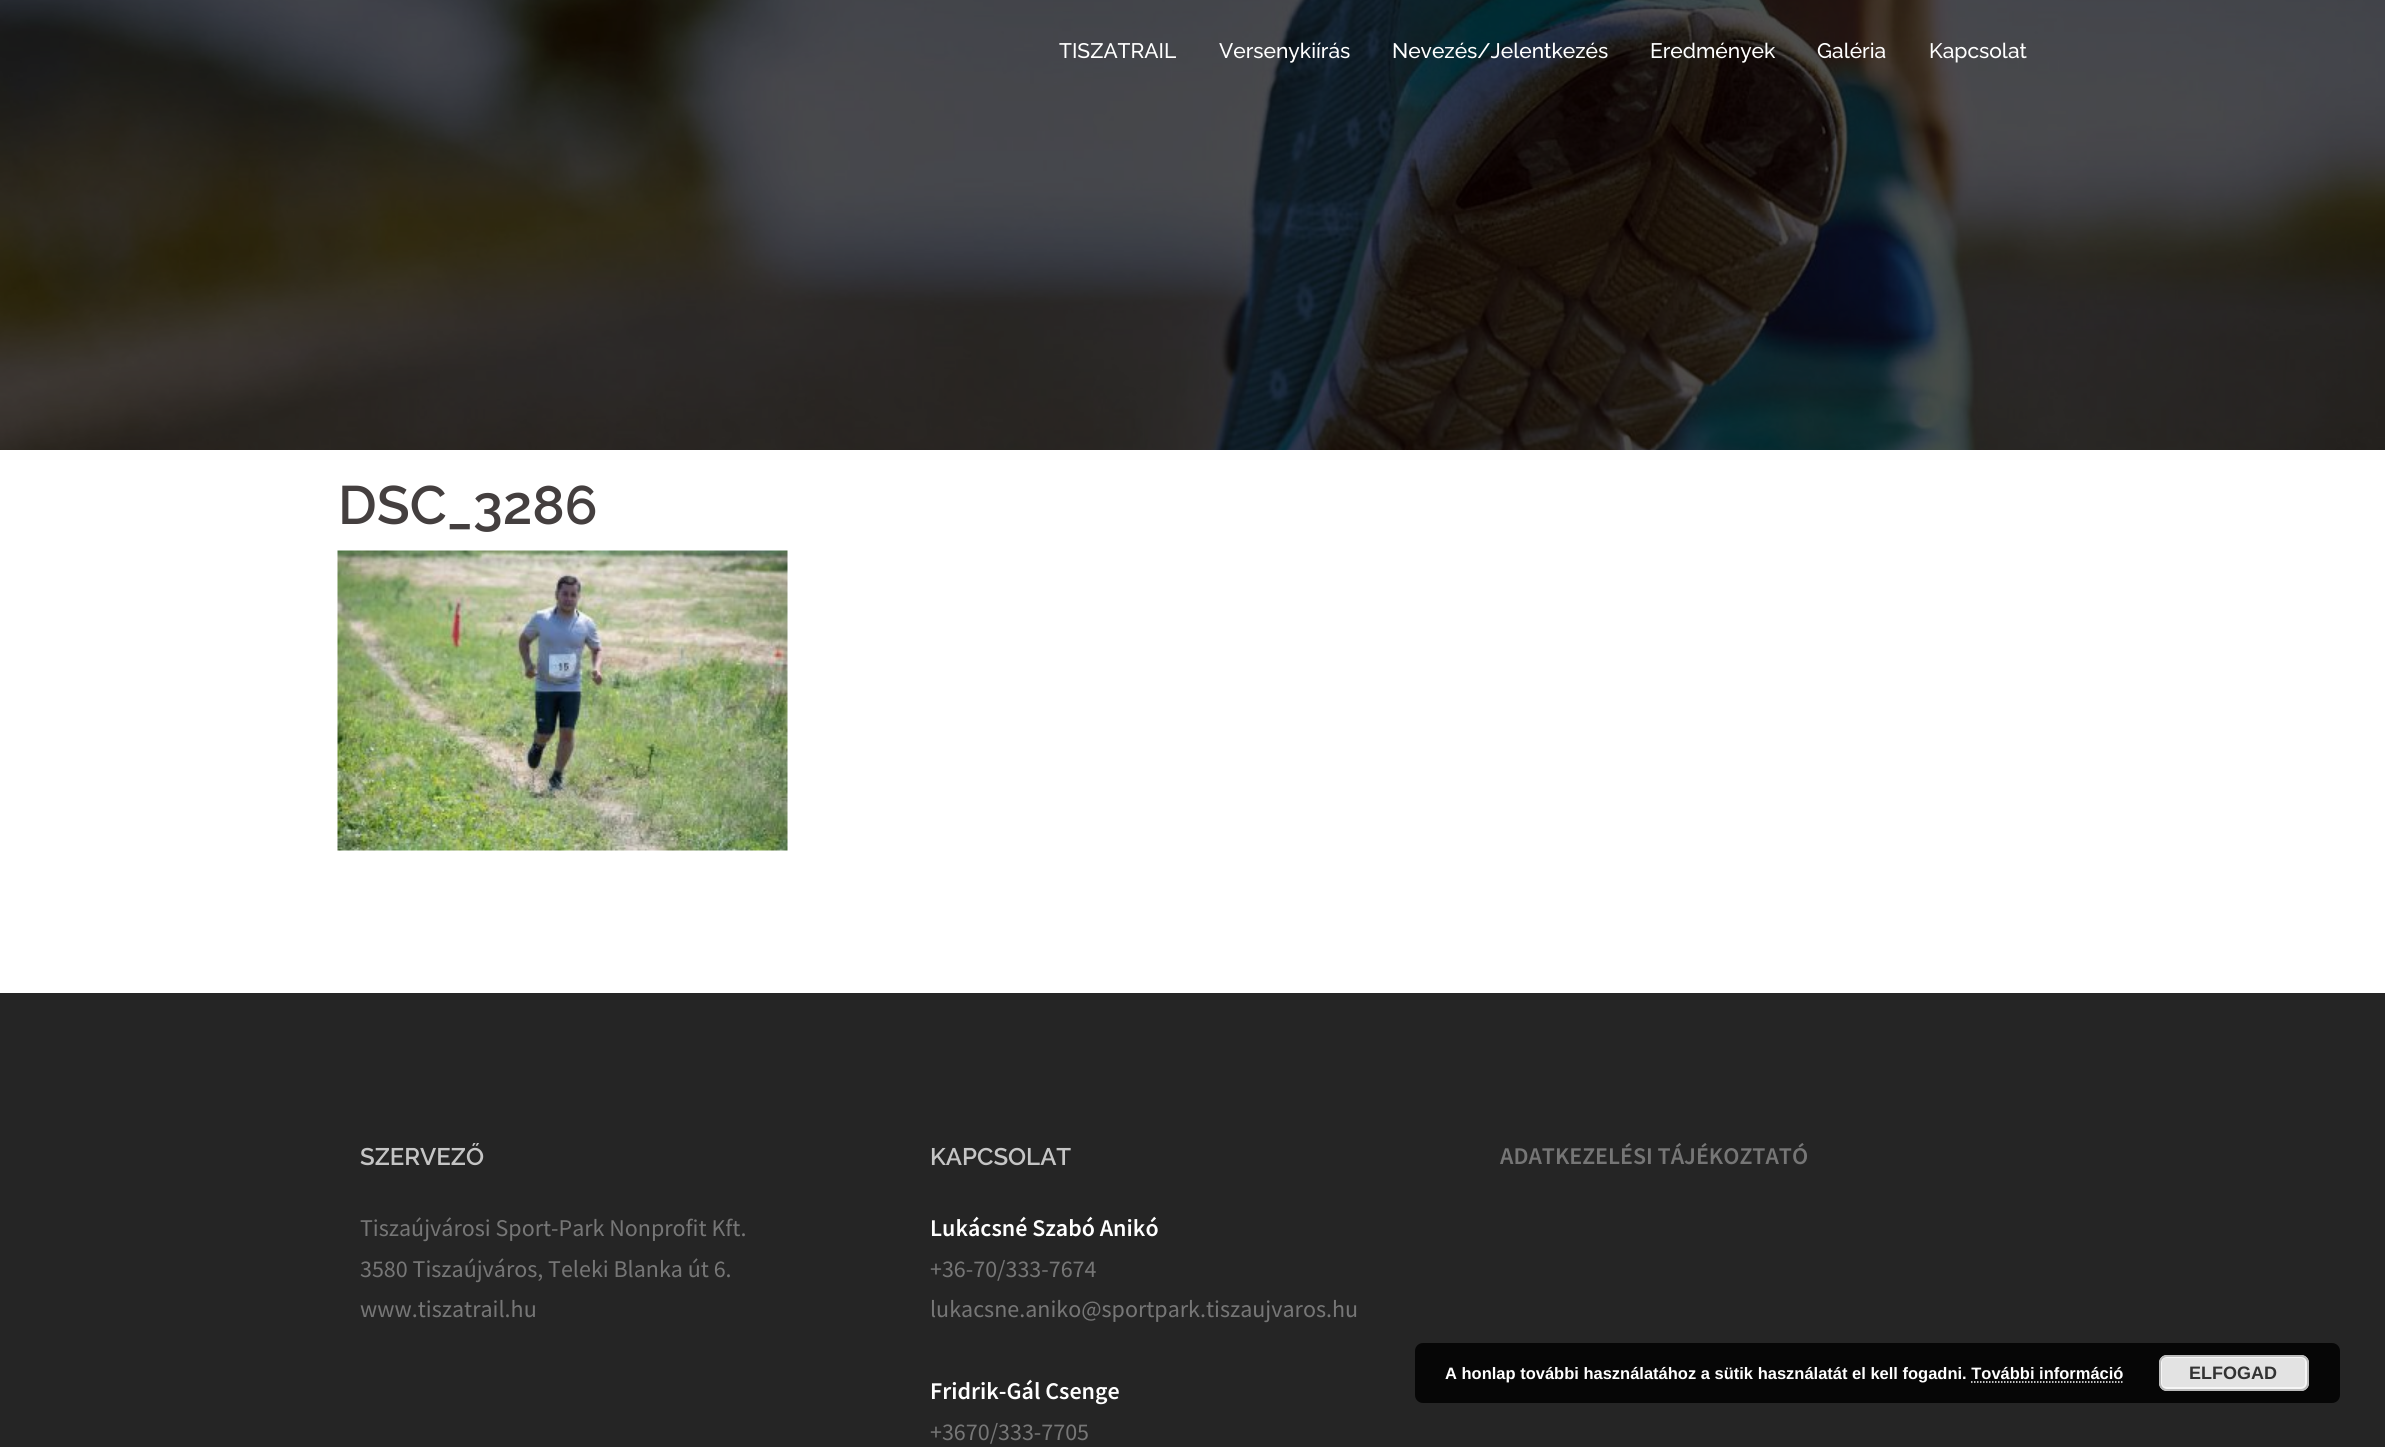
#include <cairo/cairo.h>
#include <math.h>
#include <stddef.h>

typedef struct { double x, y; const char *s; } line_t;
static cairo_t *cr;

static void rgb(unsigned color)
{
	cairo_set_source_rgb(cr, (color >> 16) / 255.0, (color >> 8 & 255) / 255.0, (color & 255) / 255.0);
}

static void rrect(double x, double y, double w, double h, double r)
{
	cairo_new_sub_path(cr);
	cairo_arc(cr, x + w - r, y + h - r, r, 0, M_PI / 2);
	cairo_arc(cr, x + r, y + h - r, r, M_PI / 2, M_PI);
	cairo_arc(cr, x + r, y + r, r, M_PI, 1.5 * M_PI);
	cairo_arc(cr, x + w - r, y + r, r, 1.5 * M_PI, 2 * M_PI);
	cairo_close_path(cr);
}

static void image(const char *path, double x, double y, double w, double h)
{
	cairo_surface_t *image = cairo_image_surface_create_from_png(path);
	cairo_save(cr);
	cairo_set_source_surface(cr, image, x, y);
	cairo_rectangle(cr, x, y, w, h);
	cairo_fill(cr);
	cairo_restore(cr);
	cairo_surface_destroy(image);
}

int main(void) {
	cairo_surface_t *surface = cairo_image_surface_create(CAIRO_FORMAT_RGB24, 2385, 1447);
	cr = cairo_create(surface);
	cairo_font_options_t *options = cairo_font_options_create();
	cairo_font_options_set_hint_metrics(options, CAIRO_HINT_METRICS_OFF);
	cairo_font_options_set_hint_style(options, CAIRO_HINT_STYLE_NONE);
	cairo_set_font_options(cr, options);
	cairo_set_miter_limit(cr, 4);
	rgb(0xffffff);
	cairo_paint(cr);
	image("img/1.png", 0, 0, 2385, 450);
	image("img/2.png", 337, 550, 451, 301);
	rgb(0x252525);
	cairo_rectangle(cr, 0, 993, 2385, 454);
	cairo_fill(cr);
	rgb(0x060606);
	rrect(1415, 1343, 925, 60, 8);
	cairo_fill(cr);
	rgb(0xe3e3e3);
	rrect(2159, 1355, 150, 36, 8);
	cairo_fill(cr);
	rrect(2161, 1357, 145, 31, 5);
	rgb(0xf6f6f6);
	cairo_stroke(cr);
	rrect(2160, 1356, 148, 34, 7);
	rgb(0xbbbbbb);
	cairo_stroke(cr);
	cairo_new_path(cr);
	cairo_move_to(cr, 1971, 1382);
	cairo_line_to(cr, 2124, 1382);
	rgb(0xffffff);
	cairo_set_line_width(cr, 1.5);
	cairo_set_dash(cr, (double[]){1.5, 1.5}, 2, 0);
	cairo_stroke(cr);
	cairo_select_font_face(cr, "Raleway Medium", CAIRO_FONT_SLANT_NORMAL, CAIRO_FONT_WEIGHT_NORMAL);
	cairo_set_font_size(cr, 21);
	{
		static const line_t items[] = {
			{1059, 58, "TISZATRAIL"},
			{1219, 58, "Versenykiírás"},
			{1392, 58, "Nevezés/Jelentkezés"},
			{1650, 58, "Eredmények"},
			{1817, 58, "Galéria"},
			{1929, 58, "Kapcsolat"},
		};
		for (size_t i = 0; i < sizeof items / sizeof *items; i++) {
			cairo_move_to(cr, items[i].x, items[i].y);
			cairo_show_text(cr, items[i].s);
		}
	}
	cairo_select_font_face(cr, "Raleway SemiBold", CAIRO_FONT_SLANT_NORMAL, CAIRO_FONT_WEIGHT_NORMAL);
	cairo_set_font_size(cr, 54);
	rgb(0x443f3f);
	cairo_move_to(cr, 338, 524);
	cairo_show_text(cr, "DSC_3286");
	cairo_set_font_size(cr, 24);
	rgb(0xc5c5c5);
	cairo_move_to(cr, 360, 1165);
	cairo_show_text(cr, "SZERVEZŐ");
	cairo_select_font_face(cr, "Source Sans Pro", CAIRO_FONT_SLANT_NORMAL, CAIRO_FONT_WEIGHT_NORMAL);
	rgb(0x767676);
	{
		static const line_t items[] = {
			{360, 1236, "Tiszaújvárosi Sport-Park Nonprofit Kft."},
			{360, 1277, "3580 Tiszaújváros, Teleki Blanka út 6."},
			{360, 1317, "www.tiszatrail.hu"},
		};
		for (size_t i = 0; i < sizeof items / sizeof *items; i++) {
			cairo_move_to(cr, items[i].x, items[i].y);
			cairo_show_text(cr, items[i].s);
		}
	}
	cairo_select_font_face(cr, "Raleway SemiBold", CAIRO_FONT_SLANT_NORMAL, CAIRO_FONT_WEIGHT_NORMAL);
	rgb(0xc5c5c5);
	cairo_move_to(cr, 930, 1165);
	cairo_show_text(cr, "KAPCSOLAT");
	cairo_select_font_face(cr, "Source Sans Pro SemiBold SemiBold", CAIRO_FONT_SLANT_NORMAL, CAIRO_FONT_WEIGHT_NORMAL);
	rgb(0xffffff);
	cairo_move_to(cr, 930, 1236);
	cairo_show_text(cr, "Lukácsné Szabó Anikó");
	cairo_select_font_face(cr, "Source Sans Pro", CAIRO_FONT_SLANT_NORMAL, CAIRO_FONT_WEIGHT_NORMAL);
	rgb(0x767676);
	cairo_move_to(cr, 930, 1277);
	cairo_show_text(cr, "+36-70/333-7674");
	cairo_move_to(cr, 930, 1317);
	cairo_show_text(cr, "lukacsne.aniko@sportpark.tiszaujvaros.hu");
	cairo_select_font_face(cr, "Source Sans Pro SemiBold SemiBold", CAIRO_FONT_SLANT_NORMAL, CAIRO_FONT_WEIGHT_NORMAL);
	rgb(0xffffff);
	cairo_move_to(cr, 930, 1399);
	cairo_show_text(cr, "Fridrik-Gál Csenge");
	cairo_select_font_face(cr, "Source Sans Pro", CAIRO_FONT_SLANT_NORMAL, CAIRO_FONT_WEIGHT_NORMAL);
	rgb(0x767676);
	cairo_move_to(cr, 930, 1440);
	cairo_show_text(cr, "+3670/333-7705");
	cairo_select_font_face(cr, "Source Sans Pro SemiBold SemiBold", CAIRO_FONT_SLANT_NORMAL, CAIRO_FONT_WEIGHT_NORMAL);
	cairo_move_to(cr, 1500, 1164);
	cairo_show_text(cr, "ADATKEZELÉSI TÁJÉKOZTATÓ");
	cairo_select_font_face(cr, "Liberation Sans", CAIRO_FONT_SLANT_NORMAL, CAIRO_FONT_WEIGHT_BOLD);
	cairo_set_font_size(cr, 16.5);
	rgb(0xffffff);
	cairo_move_to(cr, 1445, 1379);
	cairo_show_text(cr, "A honlap további használatához a sütik használatát el kell fogadni. További információ");
	cairo_set_font_size(cr, 18);
	rgb(0x333333);
	cairo_move_to(cr, 2189, 1379);
	cairo_show_text(cr, "ELFOGAD");
	cairo_surface_write_to_png(surface, "page.png");
	cairo_font_options_destroy(options);
	cairo_destroy(cr);
	cairo_surface_destroy(surface);
	return 0;
}
